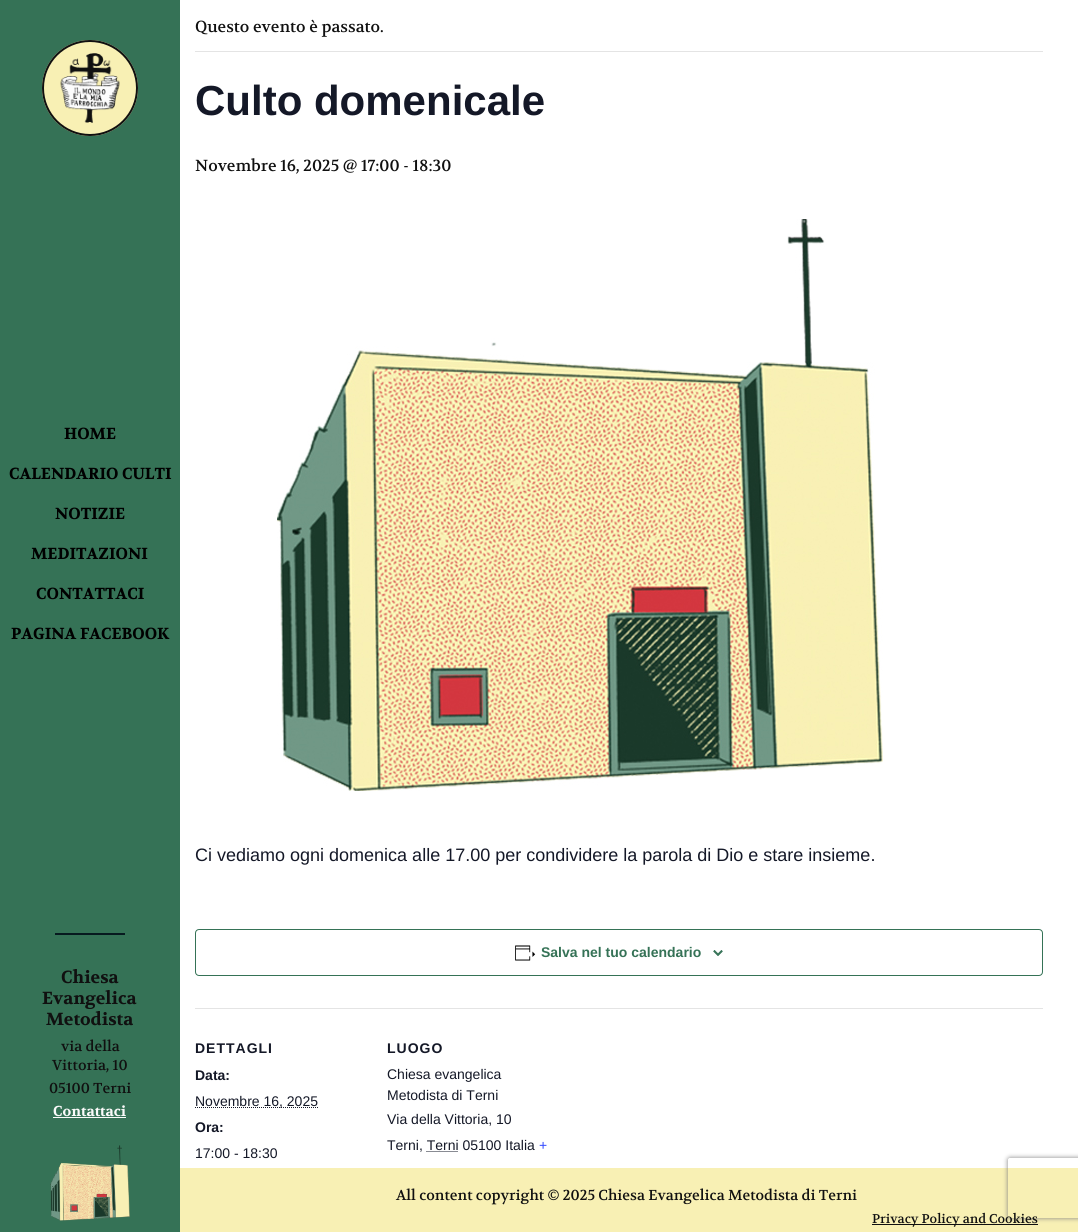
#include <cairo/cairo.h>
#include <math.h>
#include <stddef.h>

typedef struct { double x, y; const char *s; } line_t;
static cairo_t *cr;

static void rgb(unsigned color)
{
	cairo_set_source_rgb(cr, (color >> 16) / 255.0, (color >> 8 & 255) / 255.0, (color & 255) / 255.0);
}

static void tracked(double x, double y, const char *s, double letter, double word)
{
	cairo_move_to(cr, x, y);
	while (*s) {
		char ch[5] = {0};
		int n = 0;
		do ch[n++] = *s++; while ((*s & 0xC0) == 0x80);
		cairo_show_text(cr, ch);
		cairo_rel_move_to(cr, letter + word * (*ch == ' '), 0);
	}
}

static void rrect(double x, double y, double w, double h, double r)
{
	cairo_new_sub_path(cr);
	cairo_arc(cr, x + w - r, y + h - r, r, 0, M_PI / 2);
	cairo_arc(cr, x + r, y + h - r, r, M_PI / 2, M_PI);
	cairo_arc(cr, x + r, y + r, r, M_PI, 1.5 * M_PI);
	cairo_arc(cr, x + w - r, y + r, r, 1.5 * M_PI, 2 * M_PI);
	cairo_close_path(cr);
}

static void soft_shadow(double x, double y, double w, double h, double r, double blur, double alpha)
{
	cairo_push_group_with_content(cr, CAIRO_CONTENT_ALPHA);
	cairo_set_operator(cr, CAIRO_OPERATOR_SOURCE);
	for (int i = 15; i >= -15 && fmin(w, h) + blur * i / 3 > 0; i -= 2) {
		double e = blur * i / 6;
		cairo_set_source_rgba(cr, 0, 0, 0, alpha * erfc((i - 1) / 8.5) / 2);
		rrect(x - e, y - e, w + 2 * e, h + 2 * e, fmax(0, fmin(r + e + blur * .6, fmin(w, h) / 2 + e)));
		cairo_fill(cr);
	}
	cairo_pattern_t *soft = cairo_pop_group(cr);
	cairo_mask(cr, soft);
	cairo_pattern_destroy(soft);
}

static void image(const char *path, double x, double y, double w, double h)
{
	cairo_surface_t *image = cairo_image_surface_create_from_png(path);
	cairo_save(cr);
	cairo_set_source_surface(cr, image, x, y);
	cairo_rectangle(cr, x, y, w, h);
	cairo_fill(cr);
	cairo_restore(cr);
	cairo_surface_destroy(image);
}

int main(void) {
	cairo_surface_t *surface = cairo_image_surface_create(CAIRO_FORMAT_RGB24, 1078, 1232);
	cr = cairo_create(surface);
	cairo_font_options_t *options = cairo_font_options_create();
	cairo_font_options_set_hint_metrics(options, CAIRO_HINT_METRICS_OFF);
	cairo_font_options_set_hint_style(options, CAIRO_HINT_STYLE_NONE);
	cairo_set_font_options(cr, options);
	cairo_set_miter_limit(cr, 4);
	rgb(0xffffff);
	cairo_paint(cr);
	rgb(0x357256);
	cairo_rectangle(cr, 0, 0, 180, 1232);
	cairo_fill(cr);
	rgb(0xf8f0b4);
	cairo_arc(cr, 90, 88, 48, 0, 2 * M_PI);
	cairo_fill(cr);
	image("img/1.png", 60, 53, 60, 70);
	cairo_arc(cr, 90, 88, 47, 0, 2 * M_PI);
	rgb(0x101010);
	cairo_stroke(cr);
	rgb(0x071a1f);
	cairo_rectangle(cr, 55, 933, 70, 2);
	cairo_fill(cr);
	rgb(0xfafafa);
	cairo_rectangle(cr, 53, 1117, 73, 1);
	cairo_fill(cr);
	image("img/2.png", 50, 1145, 80, 76);
	rgb(0xe4e4e4);
	cairo_rectangle(cr, 195, 51, 848, 1);
	cairo_fill(cr);
	image("img/3.png", 277, 219, 606, 572);
	rrect(195.5, 929.5, 847, 46, 3.5);
	rgb(0x357256);
	cairo_set_line_width(cr, 1);
	cairo_stroke(cr);
	image("img/4.png", 515, 945, 21, 16);
	image("img/5.png", 713, 950, 10, 6);
	rgb(0xe4e4e4);
	cairo_rectangle(cr, 195, 1008, 848, 1);
	cairo_fill(cr);
	cairo_new_path(cr);
	cairo_move_to(cr, 195, 1107.5);
	cairo_line_to(cr, 318, 1107.5);
	rgb(0x141827);
	cairo_set_dash(cr, (double[]){1, 1}, 2, 0);
	cairo_stroke(cr);
	cairo_new_path(cr);
	cairo_move_to(cr, 426.5, 1151.5);
	cairo_line_to(cr, 458.5, 1151.5);
	cairo_stroke(cr);
	rgb(0xf8f0b4);
	cairo_rectangle(cr, 180, 1168, 898, 64);
	cairo_fill(cr);
	rgb(0x101010);
	cairo_rectangle(cr, 872, 1224, 166, 1);
	cairo_fill(cr);
	cairo_save(cr);
	cairo_set_fill_rule(cr, CAIRO_FILL_RULE_EVEN_ODD);
	cairo_new_path(cr);
	cairo_move_to(cr, 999, 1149);
	cairo_line_to(cr, 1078, 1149);
	cairo_line_to(cr, 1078, 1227);
	cairo_line_to(cr, 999, 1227);
	cairo_close_path(cr);
	cairo_move_to(cr, 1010, 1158);
	cairo_line_to(cr, 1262, 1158);
	cairo_curve_to(cr, 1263, 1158, 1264, 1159, 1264, 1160);
	cairo_line_to(cr, 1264, 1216);
	cairo_curve_to(cr, 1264, 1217, 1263, 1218, 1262, 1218);
	cairo_line_to(cr, 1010, 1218);
	cairo_curve_to(cr, 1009, 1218, 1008, 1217, 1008, 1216);
	cairo_line_to(cr, 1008, 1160);
	cairo_curve_to(cr, 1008, 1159, 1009, 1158, 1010, 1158);
	cairo_close_path(cr);
	cairo_clip(cr);
	rgb(0x808080);
	soft_shadow(1008, 1158, 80, 60, 2, 2.5, 1);
	cairo_restore(cr);
	cairo_select_font_face(cr, "Volkhov", CAIRO_FONT_SLANT_NORMAL, CAIRO_FONT_WEIGHT_BOLD);
	cairo_set_font_size(cr, 16);
	rgb(0x000000);
	{
		static const line_t items[] = {
			{64, 439, "HOME"},
			{9, 479, "CALENDARIO CULTI"},
			{55, 519, "NOTIZIE"},
			{31, 559, "MEDITAZIONI"},
			{36, 599, "CONTATTACI"},
			{11, 639, "PAGINA FACEBOOK"},
		};
		for (size_t i = 0; i < sizeof items / sizeof *items; i++) {
			cairo_move_to(cr, items[i].x, items[i].y);
			cairo_show_text(cr, items[i].s);
		}
	}
	cairo_set_font_size(cr, 17.5);
	rgb(0x101010);
	{
		static const line_t items[] = {
			{61, 983, "Chiesa"},
			{42, 1004, "Evangelica"},
			{46, 1025, "Metodista"},
		};
		for (size_t i = 0; i < sizeof items / sizeof *items; i++) {
			cairo_move_to(cr, items[i].x, items[i].y);
			cairo_show_text(cr, items[i].s);
		}
	}
	cairo_select_font_face(cr, "Volkhov", CAIRO_FONT_SLANT_NORMAL, CAIRO_FONT_WEIGHT_NORMAL);
	cairo_set_font_size(cr, 14.4);
	{
		static const line_t items[] = {
			{61, 1051, "via della"},
			{52, 1070, "Vittoria, 10"},
			{49, 1093, "05100 Terni"},
		};
		for (size_t i = 0; i < sizeof items / sizeof *items; i++) {
			cairo_move_to(cr, items[i].x, items[i].y);
			cairo_show_text(cr, items[i].s);
		}
	}
	cairo_select_font_face(cr, "Volkhov", CAIRO_FONT_SLANT_NORMAL, CAIRO_FONT_WEIGHT_BOLD);
	rgb(0xfafafa);
	cairo_move_to(cr, 53, 1116);
	cairo_show_text(cr, "Contattaci");
	cairo_select_font_face(cr, "Volkhov", CAIRO_FONT_SLANT_NORMAL, CAIRO_FONT_WEIGHT_NORMAL);
	cairo_set_font_size(cr, 16);
	rgb(0x101010);
	cairo_move_to(cr, 195, 32);
	cairo_show_text(cr, "Questo evento è passato.");
	cairo_select_font_face(cr, "Liberation Sans", CAIRO_FONT_SLANT_NORMAL, CAIRO_FONT_WEIGHT_BOLD);
	cairo_set_font_size(cr, 42);
	rgb(0x141827);
	cairo_move_to(cr, 195, 115);
	cairo_show_text(cr, "Culto domenicale");
	cairo_select_font_face(cr, "Volkhov", CAIRO_FONT_SLANT_NORMAL, CAIRO_FONT_WEIGHT_NORMAL);
	cairo_set_font_size(cr, 16);
	rgb(0x101010);
	cairo_move_to(cr, 195, 171);
	cairo_show_text(cr, "Novembre 16, 2025 @ 17:00 - 18:30");
	cairo_select_font_face(cr, "Liberation Sans", CAIRO_FONT_SLANT_NORMAL, CAIRO_FONT_WEIGHT_NORMAL);
	cairo_set_font_size(cr, 18);
	rgb(0x141827);
	cairo_move_to(cr, 195, 861);
	cairo_show_text(cr, "Ci vediamo ogni domenica alle 17.00 per condividere la parola di Dio e stare insieme.");
	cairo_select_font_face(cr, "Liberation Sans", CAIRO_FONT_SLANT_NORMAL, CAIRO_FONT_WEIGHT_BOLD);
	cairo_set_font_size(cr, 14);
	rgb(0x357256);
	cairo_move_to(cr, 541, 957);
	cairo_show_text(cr, "Salva nel tuo calendario");
	rgb(0x141827);
	tracked(195, 1053, "DETTAGLI", 1, 0);
	cairo_move_to(cr, 195, 1080);
	cairo_show_text(cr, "Data:");
	cairo_select_font_face(cr, "Liberation Sans", CAIRO_FONT_SLANT_NORMAL, CAIRO_FONT_WEIGHT_NORMAL);
	cairo_move_to(cr, 195, 1106);
	cairo_show_text(cr, "Novembre 16, 2025");
	cairo_select_font_face(cr, "Liberation Sans", CAIRO_FONT_SLANT_NORMAL, CAIRO_FONT_WEIGHT_BOLD);
	cairo_move_to(cr, 195, 1132);
	cairo_show_text(cr, "Ora:");
	cairo_select_font_face(cr, "Liberation Sans", CAIRO_FONT_SLANT_NORMAL, CAIRO_FONT_WEIGHT_NORMAL);
	cairo_move_to(cr, 195, 1158);
	cairo_show_text(cr, "17:00 - 18:30");
	cairo_select_font_face(cr, "Liberation Sans", CAIRO_FONT_SLANT_NORMAL, CAIRO_FONT_WEIGHT_BOLD);
	tracked(387, 1053, "LUOGO", 1, 0);
	cairo_select_font_face(cr, "Liberation Sans", CAIRO_FONT_SLANT_NORMAL, CAIRO_FONT_WEIGHT_NORMAL);
	{
		static const line_t items[] = {
			{387, 1079, "Chiesa evangelica"},
			{387, 1100, "Metodista di Terni"},
			{387, 1124, "Via della Vittoria, 10"},
			{387, 1150, "Terni, Terni 05100 Italia"},
		};
		for (size_t i = 0; i < sizeof items / sizeof *items; i++) {
			cairo_move_to(cr, items[i].x, items[i].y);
			cairo_show_text(cr, items[i].s);
		}
	}
	rgb(0x334aff);
	cairo_move_to(cr, 539, 1150);
	cairo_show_text(cr, "+");
	cairo_select_font_face(cr, "Volkhov", CAIRO_FONT_SLANT_NORMAL, CAIRO_FONT_WEIGHT_NORMAL);
	cairo_set_font_size(cr, 14.4);
	rgb(0x101010);
	cairo_move_to(cr, 396, 1200);
	cairo_show_text(cr, "All content copyright © 2025 Chiesa Evangelica Metodista di Terni");
	cairo_set_font_size(cr, 12.75);
	cairo_move_to(cr, 872, 1223);
	cairo_show_text(cr, "Privacy Policy and Cookies");
	cairo_surface_write_to_png(surface, "page.png");
	cairo_font_options_destroy(options);
	cairo_destroy(cr);
	cairo_surface_destroy(surface);
	return 0;
}
